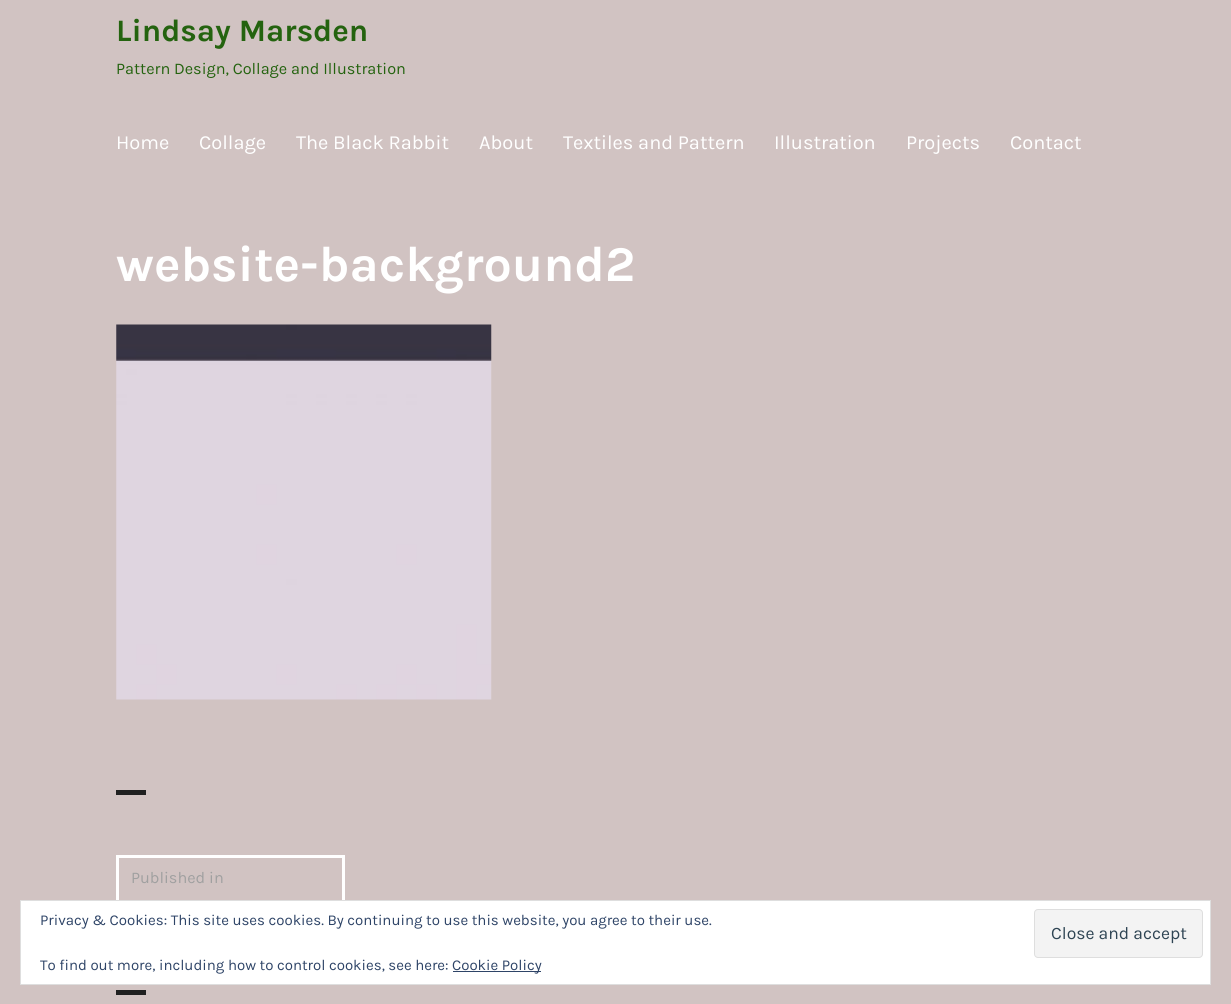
#include <cairo/cairo.h>
#include <math.h>
#include <stddef.h>

typedef struct { double x, y; const char *s; } line_t;
static cairo_t *cr;

static void rgb(unsigned color)
{
	cairo_set_source_rgb(cr, (color >> 16) / 255.0, (color >> 8 & 255) / 255.0, (color & 255) / 255.0);
}

static void rrect(double x, double y, double w, double h, double r)
{
	cairo_new_sub_path(cr);
	cairo_arc(cr, x + w - r, y + h - r, r, 0, M_PI / 2);
	cairo_arc(cr, x + r, y + h - r, r, M_PI / 2, M_PI);
	cairo_arc(cr, x + r, y + r, r, M_PI, 1.5 * M_PI);
	cairo_arc(cr, x + w - r, y + r, r, 1.5 * M_PI, 2 * M_PI);
	cairo_close_path(cr);
}

static void image(const char *path, double x, double y, double w, double h)
{
	cairo_surface_t *image = cairo_image_surface_create_from_png(path);
	cairo_save(cr);
	cairo_set_source_surface(cr, image, x, y);
	cairo_rectangle(cr, x, y, w, h);
	cairo_fill(cr);
	cairo_restore(cr);
	cairo_surface_destroy(image);
}

int main(void) {
	cairo_surface_t *surface = cairo_image_surface_create(CAIRO_FORMAT_RGB24, 1231, 1004);
	cr = cairo_create(surface);
	cairo_font_options_t *options = cairo_font_options_create();
	cairo_font_options_set_hint_metrics(options, CAIRO_HINT_METRICS_OFF);
	cairo_font_options_set_hint_style(options, CAIRO_HINT_STYLE_NONE);
	cairo_set_font_options(cr, options);
	cairo_set_miter_limit(cr, 4);
	rgb(0xd1c3c2);
	cairo_paint(cr);
	image("img/1.png", 116, 324, 376, 376);
	rgb(0x202020);
	cairo_rectangle(cr, 116, 790, 30, 5);
	cairo_fill(cr);
	cairo_rectangle(cr, 117.5, 856.5, 226, 72);
	rgb(0xffffff);
	cairo_set_line_width(cr, 3);
	cairo_stroke(cr);
	rgb(0x202020);
	cairo_rectangle(cr, 116, 990, 30, 5);
	cairo_fill(cr);
	rgb(0xffffff);
	cairo_rectangle(cr, 20.5, 900.5, 1190, 84);
	cairo_fill_preserve(cr);
	rgb(0xdedede);
	cairo_set_line_width(cr, 1);
	cairo_stroke(cr);
	rgb(0xf3f3f3);
	rrect(1034.5, 909.5, 168, 48, 3.5);
	cairo_fill_preserve(cr);
	rgb(0xdedede);
	cairo_stroke(cr);
	rgb(0x2e4467);
	cairo_rectangle(cr, 453, 971, 88, 1);
	cairo_fill(cr);
	cairo_select_font_face(cr, "Karla", CAIRO_FONT_SLANT_NORMAL, CAIRO_FONT_WEIGHT_BOLD);
	cairo_set_font_size(cr, 31.25);
	rgb(0x24630f);
	cairo_move_to(cr, 116, 41);
	cairo_show_text(cr, "Lindsay Marsden");
	cairo_select_font_face(cr, "Karla", CAIRO_FONT_SLANT_NORMAL, CAIRO_FONT_WEIGHT_NORMAL);
	cairo_set_font_size(cr, 16.25);
	cairo_move_to(cr, 116, 74);
	cairo_show_text(cr, "Pattern Design, Collage and Illustration");
	cairo_set_font_size(cr, 20);
	rgb(0xffffff);
	{
		static const line_t items[] = {
			{116, 149, "Home"},
			{199, 149, "Collage"},
			{296, 149, "The Black Rabbit"},
			{479, 149, "About"},
			{563, 149, "Textiles and Pattern"},
			{774, 149, "Illustration"},
			{906, 149, "Projects"},
			{1010, 149, "Contact"},
		};
		for (size_t i = 0; i < sizeof items / sizeof *items; i++) {
			cairo_move_to(cr, items[i].x, items[i].y);
			cairo_show_text(cr, items[i].s);
		}
	}
	cairo_select_font_face(cr, "Karla", CAIRO_FONT_SLANT_NORMAL, CAIRO_FONT_WEIGHT_BOLD);
	cairo_set_font_size(cr, 50);
	cairo_move_to(cr, 116, 281);
	cairo_show_text(cr, "website-background2");
	cairo_select_font_face(cr, "Karla", CAIRO_FONT_SLANT_NORMAL, CAIRO_FONT_WEIGHT_NORMAL);
	cairo_set_font_size(cr, 16.25);
	rgb(0xa0a0a0);
	cairo_move_to(cr, 131, 883);
	cairo_show_text(cr, "Published in");
	cairo_set_font_size(cr, 15);
	rgb(0x2e4467);
	cairo_move_to(cr, 40, 925);
	cairo_show_text(cr, "Privacy & Cookies: This site uses cookies. By continuing to use this website, you agree to their use.");
	cairo_set_font_size(cr, 17.5);
	rgb(0x2e4453);
	cairo_move_to(cr, 1051, 939);
	cairo_show_text(cr, "Close and accept");
	cairo_set_font_size(cr, 15);
	rgb(0x2e4467);
	cairo_move_to(cr, 40, 970);
	cairo_show_text(cr, "To find out more, including how to control cookies, see here:");
	cairo_move_to(cr, 452, 970);
	cairo_show_text(cr, "Cookie Policy");
	cairo_surface_write_to_png(surface, "page.png");
	cairo_font_options_destroy(options);
	cairo_destroy(cr);
	cairo_surface_destroy(surface);
	return 0;
}
